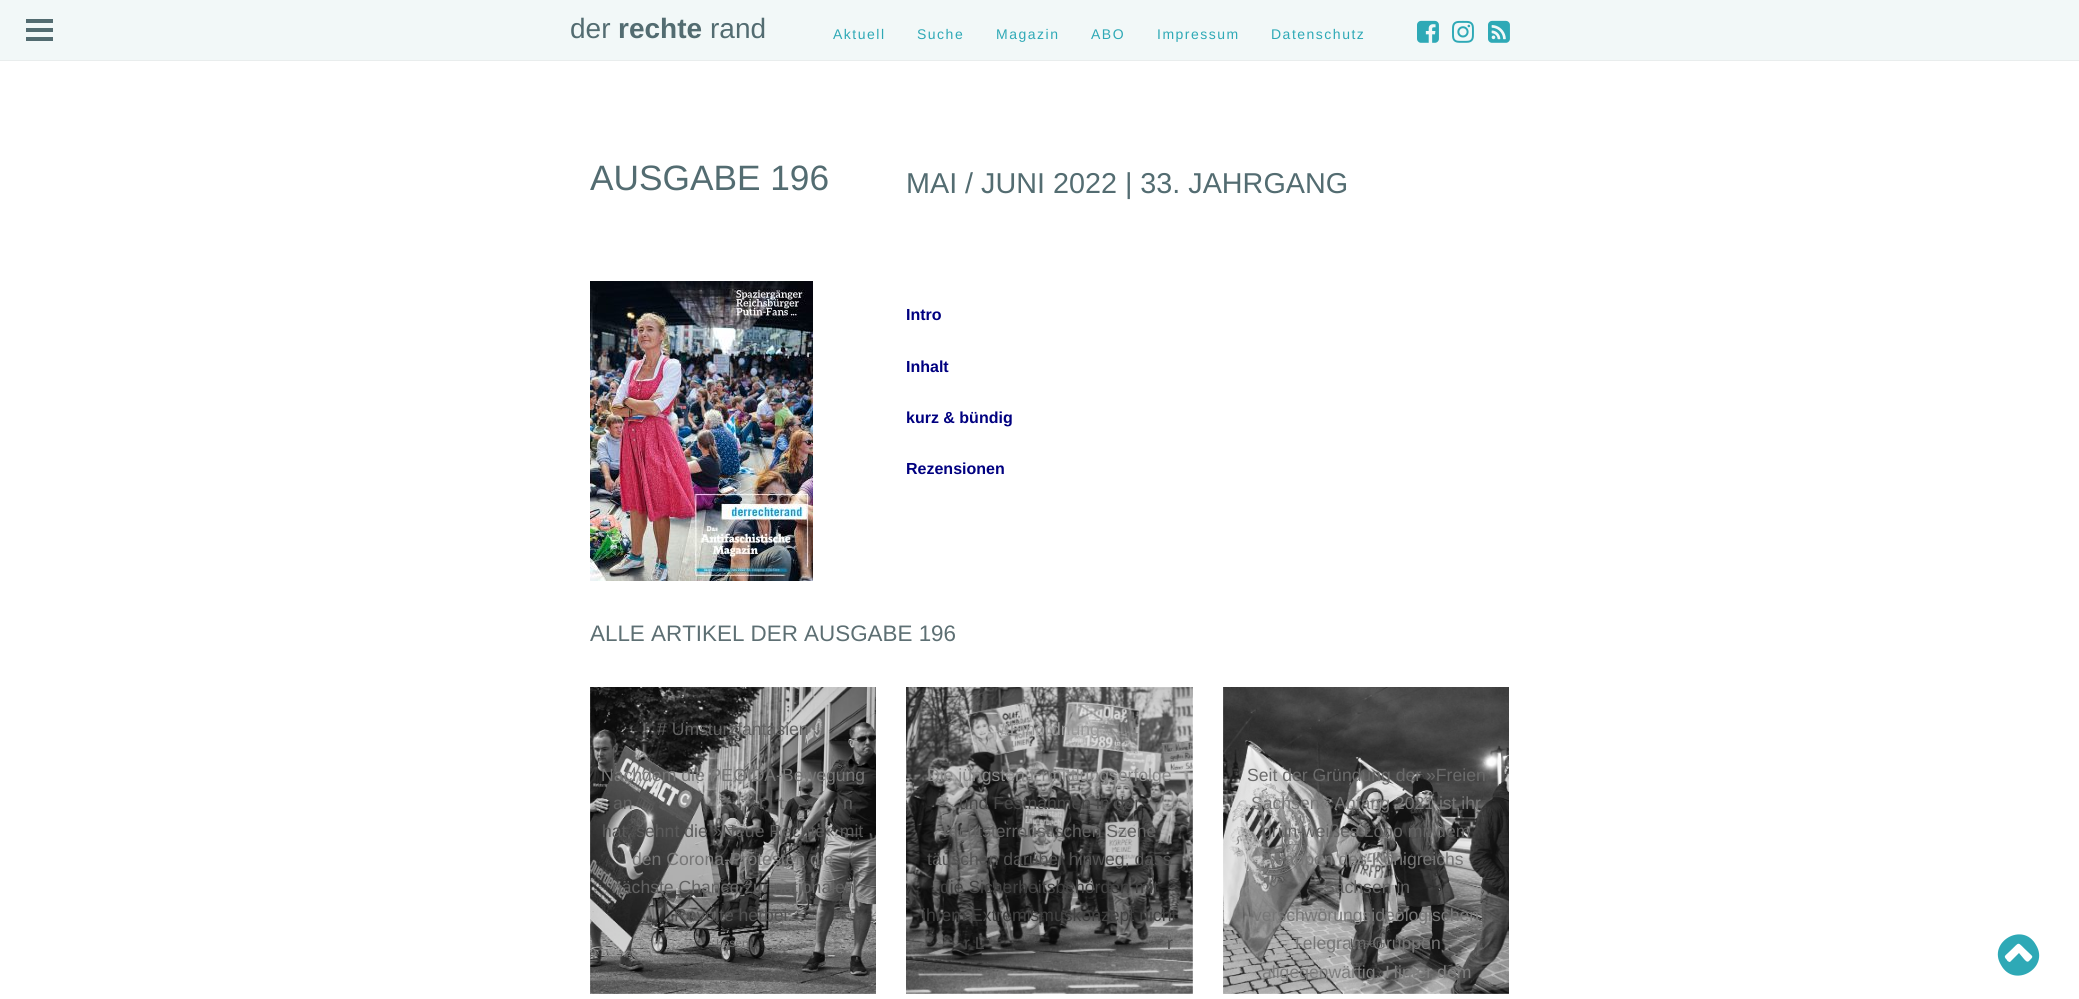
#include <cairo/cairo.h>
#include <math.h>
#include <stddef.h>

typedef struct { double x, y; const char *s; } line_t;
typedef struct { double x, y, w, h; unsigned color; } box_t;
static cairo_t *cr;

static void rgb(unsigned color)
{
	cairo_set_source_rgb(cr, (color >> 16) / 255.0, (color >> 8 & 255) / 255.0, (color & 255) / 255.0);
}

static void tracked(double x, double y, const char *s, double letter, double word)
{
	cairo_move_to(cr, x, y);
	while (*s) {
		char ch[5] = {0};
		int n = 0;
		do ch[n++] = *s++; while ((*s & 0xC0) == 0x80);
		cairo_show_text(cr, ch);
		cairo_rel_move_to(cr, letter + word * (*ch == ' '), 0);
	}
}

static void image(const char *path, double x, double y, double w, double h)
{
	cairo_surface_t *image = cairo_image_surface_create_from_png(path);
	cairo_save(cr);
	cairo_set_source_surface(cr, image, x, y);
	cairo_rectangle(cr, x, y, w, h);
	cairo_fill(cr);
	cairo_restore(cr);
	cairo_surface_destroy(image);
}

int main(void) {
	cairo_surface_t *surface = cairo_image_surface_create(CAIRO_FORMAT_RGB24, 2079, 999);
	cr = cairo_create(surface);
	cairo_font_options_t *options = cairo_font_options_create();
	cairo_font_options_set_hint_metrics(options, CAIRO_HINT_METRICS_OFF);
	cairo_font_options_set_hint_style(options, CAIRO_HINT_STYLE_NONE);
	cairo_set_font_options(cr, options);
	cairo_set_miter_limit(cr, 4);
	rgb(0xffffff);
	cairo_paint(cr);
	{
		static const box_t items[] = {
			{0, 0, 2079, 60, 0xf2f8f8},
			{26, 19, 27, 4, 0x536c71},
			{26, 28, 27, 4, 0x536c71},
			{26, 37, 27, 4, 0x536c71},
			{0, 60, 2079, 1, 0xe9eded},
		};
		for (size_t i = 0; i < sizeof items / sizeof *items; i++) {
			rgb(items[i].color);
			cairo_rectangle(cr, items[i].x, items[i].y, items[i].w, items[i].h);
			cairo_fill(cr);
		}
	}
	image("img/1.png", 1417, 20, 22, 23);
	image("img/2.png", 1452, 20, 22, 23);
	image("img/3.png", 1488, 20, 22, 23);
	image("img/4.png", 590, 281, 223, 300);
	image("img/5.png", 590, 687, 286, 307);
	image("img/6.png", 906, 687, 287, 307);
	image("img/7.png", 1223, 687, 286, 307);
	rgb(0x2ea9b6);
	cairo_new_path(cr);
	cairo_move_to(cr, 2029, 961);
	cairo_curve_to(cr, 2034, 956, 2033, 957, 2028, 952);
	cairo_curve_to(cr, 2016, 941, 2021, 941, 2009, 952);
	cairo_curve_to(cr, 2005, 956, 2003, 956, 2007, 960);
	cairo_curve_to(cr, 2007, 961, 2009, 962, 2010, 962);
	cairo_line_to(cr, 2019, 953);
	cairo_line_to(cr, 2024, 959);
	cairo_curve_to(cr, 2025, 960, 2027, 963, 2029, 961);
	cairo_close_path(cr);
	cairo_move_to(cr, 2036, 945);
	cairo_curve_to(cr, 2050, 968, 2014, 989, 2001, 965);
	cairo_curve_to(cr, 1987, 942, 2023, 921, 2036, 945);
	cairo_close_path(cr);
	cairo_fill(cr);
	cairo_select_font_face(cr, "Liberation Sans", CAIRO_FONT_SLANT_NORMAL, CAIRO_FONT_WEIGHT_NORMAL);
	cairo_set_font_size(cr, 28);
	rgb(0x536c71);
	cairo_move_to(cr, 570, 38);
	cairo_show_text(cr, "der");
	cairo_select_font_face(cr, "Liberation Sans", CAIRO_FONT_SLANT_NORMAL, CAIRO_FONT_WEIGHT_BOLD);
	cairo_move_to(cr, 618, 38);
	cairo_show_text(cr, "rechte");
	cairo_select_font_face(cr, "Liberation Sans", CAIRO_FONT_SLANT_NORMAL, CAIRO_FONT_WEIGHT_NORMAL);
	cairo_move_to(cr, 710, 38);
	cairo_show_text(cr, "rand");
	cairo_set_font_size(cr, 14);
	rgb(0x2ea9b6);
	{
		static const line_t items[] = {
			{833, 39, "Aktuell"},
			{917, 39, "Suche"},
			{996, 39, "Magazin"},
			{1091, 39, "ABO"},
			{1157, 39, "Impressum"},
			{1271, 39, "Datenschutz"},
		};
		for (size_t i = 0; i < sizeof items / sizeof *items; i++) {
			tracked(items[i].x, items[i].y, items[i].s, 1.5, 0);
		}
	}
	cairo_set_font_size(cr, 35.25);
	rgb(0x536c71);
	cairo_move_to(cr, 590, 190);
	cairo_show_text(cr, "AUSGABE 196");
	cairo_set_font_size(cr, 28.75);
	cairo_move_to(cr, 906, 193);
	cairo_show_text(cr, "MAI / JUNI 2022 | 33. JAHRGANG");
	cairo_select_font_face(cr, "Liberation Sans", CAIRO_FONT_SLANT_NORMAL, CAIRO_FONT_WEIGHT_BOLD);
	cairo_set_font_size(cr, 16);
	rgb(0x000080);
	{
		static const line_t items[] = {
			{906, 320, "Intro"},
			{906, 372, "Inhalt"},
			{906, 423, "kurz & bündig"},
			{906, 474, "Rezensionen"},
		};
		for (size_t i = 0; i < sizeof items / sizeof *items; i++) {
			cairo_move_to(cr, items[i].x, items[i].y);
			cairo_show_text(cr, items[i].s);
		}
	}
	cairo_select_font_face(cr, "Liberation Sans", CAIRO_FONT_SLANT_NORMAL, CAIRO_FONT_WEIGHT_NORMAL);
	cairo_set_font_size(cr, 22.4);
	rgb(0x5d6f73);
	cairo_move_to(cr, 590, 641);
	cairo_show_text(cr, "ALLE ARTIKEL DER AUSGABE 196");
	cairo_set_font_size(cr, 17.6);
	rgb(0x626262);
	cairo_move_to(cr, 657, 735);
	cairo_show_text(cr, "# Umsturzfantasien");
	rgb(0x767676);
	cairo_move_to(cr, 601, 781);
	cairo_show_text(cr, "Nachdem die PEGIDA-Bewegung");
	rgb(0x626262);
	{
		static const line_t items[] = {
			{613, 809, "an"},
			{759, 809, "r"},
			{779, 809, "t"},
			{843, 809, "n"},
		};
		for (size_t i = 0; i < sizeof items / sizeof *items; i++) {
			cairo_move_to(cr, items[i].x, items[i].y);
			cairo_show_text(cr, items[i].s);
		}
	}
	rgb(0x5a5a5a);
	cairo_move_to(cr, 602, 837);
	cairo_show_text(cr, "hat, sehnt die »Neue Rechte« mit");
	rgb(0x767676);
	cairo_move_to(cr, 632, 865);
	cairo_show_text(cr, "den Corona-Protesten die");
	rgb(0x626262);
	cairo_move_to(cr, 612, 893);
	cairo_show_text(cr, "nächste Chance zur nationalen");
	rgb(0x535353);
	cairo_move_to(cr, 674, 921);
	cairo_show_text(cr, "Revolte herbei.");
	cairo_set_font_size(cr, 12);
	rgb(0x707070);
	cairo_move_to(cr, 716, 947);
	cairo_show_text(cr, "Lesen");
	cairo_set_font_size(cr, 17.6);
	rgb(0x989898);
	cairo_move_to(cr, 1000, 735);
	cairo_show_text(cr, "#Einordnung");
	rgb(0x888888);
	cairo_move_to(cr, 927, 781);
	cairo_show_text(cr, "Die jüngsten Ermittlungserfolge");
	rgb(0x484848);
	cairo_move_to(cr, 959, 809);
	cairo_show_text(cr, "und Festnahmen in der");
	rgb(0x626262);
	cairo_move_to(cr, 943, 837);
	cairo_show_text(cr, "rechtsterroristischen Szene");
	rgb(0x535353);
	cairo_move_to(cr, 927, 865);
	cairo_show_text(cr, "täuschen darüber hinweg, dass");
	rgb(0x414141);
	cairo_move_to(cr, 940, 893);
	cairo_show_text(cr, "die Sicherheitsbehörden mit");
	cairo_move_to(cr, 922, 921);
	cairo_show_text(cr, "ihrem Extremismuskonzept nicht");
	rgb(0x484848);
	cairo_move_to(cr, 964, 949);
	cairo_show_text(cr, "r L");
	cairo_move_to(cr, 1167, 949);
	cairo_show_text(cr, "r");
	rgb(0x6a6a6a);
	cairo_move_to(cr, 1247, 781);
	cairo_show_text(cr, "Seit der Gründung der »Freien");
	rgb(0x767676);
	cairo_move_to(cr, 1251, 809);
	cairo_show_text(cr, "Sachsen« Anfang 2021 ist ihr");
	rgb(0x626262);
	cairo_move_to(cr, 1262, 837);
	cairo_show_text(cr, "grün-weißes Logo mit dem");
	rgb(0x767676);
	cairo_move_to(cr, 1268, 865);
	cairo_show_text(cr, "Wappen des Königreichs");
	rgb(0x626262);
	cairo_move_to(cr, 1323, 893);
	cairo_show_text(cr, "Sachsen in");
	rgb(0x767676);
	cairo_move_to(cr, 1253, 921);
	cairo_show_text(cr, "verschwörungsideologischen");
	cairo_move_to(cr, 1292, 949);
	cairo_show_text(cr, "Telegram-Gruppen");
	rgb(0x7e7e7e);
	cairo_move_to(cr, 1262, 978);
	cairo_show_text(cr, "allgegenwärtig. Hinter dem");
	cairo_set_font_size(cr, 12);
	rgb(0x5a5a5a);
	cairo_move_to(cr, 1350, 947);
	cairo_show_text(cr, "Lesen");
	cairo_surface_write_to_png(surface, "page.png");
	cairo_font_options_destroy(options);
	cairo_destroy(cr);
	cairo_surface_destroy(surface);
	return 0;
}
